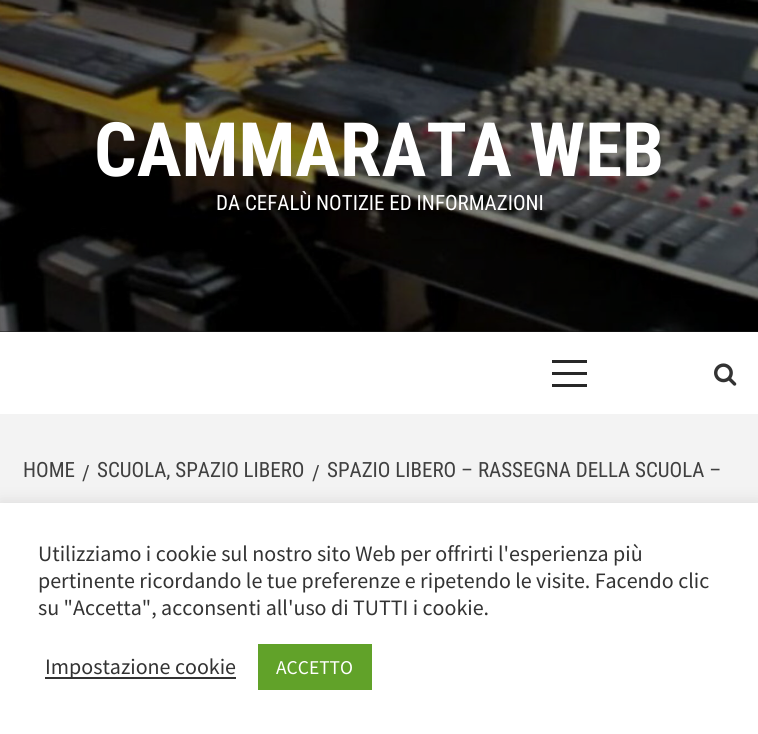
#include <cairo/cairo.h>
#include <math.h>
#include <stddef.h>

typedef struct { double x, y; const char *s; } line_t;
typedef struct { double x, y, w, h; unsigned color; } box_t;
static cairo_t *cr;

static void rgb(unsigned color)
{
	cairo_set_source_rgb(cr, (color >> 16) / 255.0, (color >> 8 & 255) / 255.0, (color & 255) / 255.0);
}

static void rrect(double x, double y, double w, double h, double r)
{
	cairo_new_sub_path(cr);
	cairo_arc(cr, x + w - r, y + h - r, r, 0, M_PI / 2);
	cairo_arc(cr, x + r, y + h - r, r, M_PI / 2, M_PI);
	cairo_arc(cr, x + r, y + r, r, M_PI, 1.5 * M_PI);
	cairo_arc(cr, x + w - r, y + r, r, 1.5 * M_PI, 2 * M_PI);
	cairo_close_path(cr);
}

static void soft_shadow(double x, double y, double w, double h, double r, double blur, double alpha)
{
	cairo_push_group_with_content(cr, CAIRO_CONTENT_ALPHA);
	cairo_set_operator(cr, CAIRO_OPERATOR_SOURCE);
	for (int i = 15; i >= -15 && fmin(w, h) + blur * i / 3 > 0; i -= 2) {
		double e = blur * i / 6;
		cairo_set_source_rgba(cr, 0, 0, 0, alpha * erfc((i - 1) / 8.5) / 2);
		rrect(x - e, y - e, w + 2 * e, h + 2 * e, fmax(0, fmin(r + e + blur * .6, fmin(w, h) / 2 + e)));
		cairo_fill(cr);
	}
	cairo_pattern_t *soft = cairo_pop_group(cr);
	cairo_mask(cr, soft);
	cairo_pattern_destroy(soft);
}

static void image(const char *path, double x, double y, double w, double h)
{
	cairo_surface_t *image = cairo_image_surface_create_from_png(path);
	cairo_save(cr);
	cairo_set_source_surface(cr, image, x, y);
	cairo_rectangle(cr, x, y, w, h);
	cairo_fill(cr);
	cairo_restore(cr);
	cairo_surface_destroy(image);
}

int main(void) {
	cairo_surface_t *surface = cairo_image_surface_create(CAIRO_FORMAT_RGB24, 758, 734);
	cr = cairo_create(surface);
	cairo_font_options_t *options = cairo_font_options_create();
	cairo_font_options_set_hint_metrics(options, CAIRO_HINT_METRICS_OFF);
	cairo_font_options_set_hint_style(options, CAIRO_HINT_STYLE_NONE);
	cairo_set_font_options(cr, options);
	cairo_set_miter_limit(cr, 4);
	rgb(0xf3f3f3);
	cairo_paint(cr);
	rgb(0x1a1a1a);
	cairo_rectangle(cr, 0, 331, 758, 1);
	cairo_fill(cr);
	image("img/1.png", 0, 0, 758, 332);
	{
		static const box_t items[] = {
			{0, 332, 758, 82, 0xffffff},
			{552, 372, 35, 3, 0x282828},
			{552, 360, 35, 3, 0x282828},
			{552, 384, 35, 3, 0x282828},
		};
		for (size_t i = 0; i < sizeof items / sizeof *items; i++) {
			rgb(items[i].color);
			cairo_rectangle(cr, items[i].x, items[i].y, items[i].w, items[i].h);
			cairo_fill(cr);
		}
	}
	image("img/2.png", 714, 363, 23, 23);
	rgb(0xacabab);
	soft_shadow(0, 501, 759, 233, 0, 7.5, 0.3);
	{
		static const box_t items[] = {
			{0, 503, 758, 231, 0xffffff},
			{45, 677, 191, 2, 0x333333},
			{258, 644, 114, 46, 0x61a229},
		};
		for (size_t i = 0; i < sizeof items / sizeof *items; i++) {
			rgb(items[i].color);
			cairo_rectangle(cr, items[i].x, items[i].y, items[i].w, items[i].h);
			cairo_fill(cr);
		}
	}
	cairo_select_font_face(cr, "Roboto Condensed", CAIRO_FONT_SLANT_NORMAL, CAIRO_FONT_WEIGHT_BOLD);
	cairo_set_font_size(cr, 75);
	rgb(0xffffff);
	cairo_move_to(cr, 94, 176);
	cairo_show_text(cr, "CAMMARATA WEB");
	cairo_select_font_face(cr, "Roboto Condensed", CAIRO_FONT_SLANT_NORMAL, CAIRO_FONT_WEIGHT_NORMAL);
	cairo_set_font_size(cr, 21);
	cairo_move_to(cr, 216, 210);
	cairo_show_text(cr, "DA CEFALÙ NOTIZIE ED INFORMAZIONI");
	rgb(0x404040);
	{
		static const line_t items[] = {
			{23, 477, "HOME"},
			{82, 480, "/"},
			{97, 477, "SCUOLA, SPAZIO LIBERO"},
			{312, 480, "/"},
			{327, 477, "SPAZIO LIBERO – RASSEGNA DELLA SCUOLA –"},
		};
		for (size_t i = 0; i < sizeof items / sizeof *items; i++) {
			cairo_move_to(cr, items[i].x, items[i].y);
			cairo_show_text(cr, items[i].s);
		}
	}
	cairo_select_font_face(cr, "Source Sans Pro", CAIRO_FONT_SLANT_NORMAL, CAIRO_FONT_WEIGHT_NORMAL);
	cairo_set_font_size(cr, 22);
	rgb(0x333333);
	{
		static const line_t items[] = {
			{38, 561, "Utilizziamo i cookie sul nostro sito Web per offrirti l'esperienza più"},
			{38, 588, "pertinente ricordando le tue preferenze e ripetendo le visite. Facendo clic"},
			{38, 615, "su \"Accetta\", acconsenti all'uso di TUTTI i cookie."},
			{45, 674, "Impostazione cookie"},
		};
		for (size_t i = 0; i < sizeof items / sizeof *items; i++) {
			cairo_move_to(cr, items[i].x, items[i].y);
			cairo_show_text(cr, items[i].s);
		}
	}
	cairo_set_font_size(cr, 19.5);
	rgb(0xffffff);
	cairo_move_to(cr, 276, 674);
	cairo_show_text(cr, "ACCETTO");
	cairo_surface_write_to_png(surface, "page.png");
	cairo_font_options_destroy(options);
	cairo_destroy(cr);
	cairo_surface_destroy(surface);
	return 0;
}
